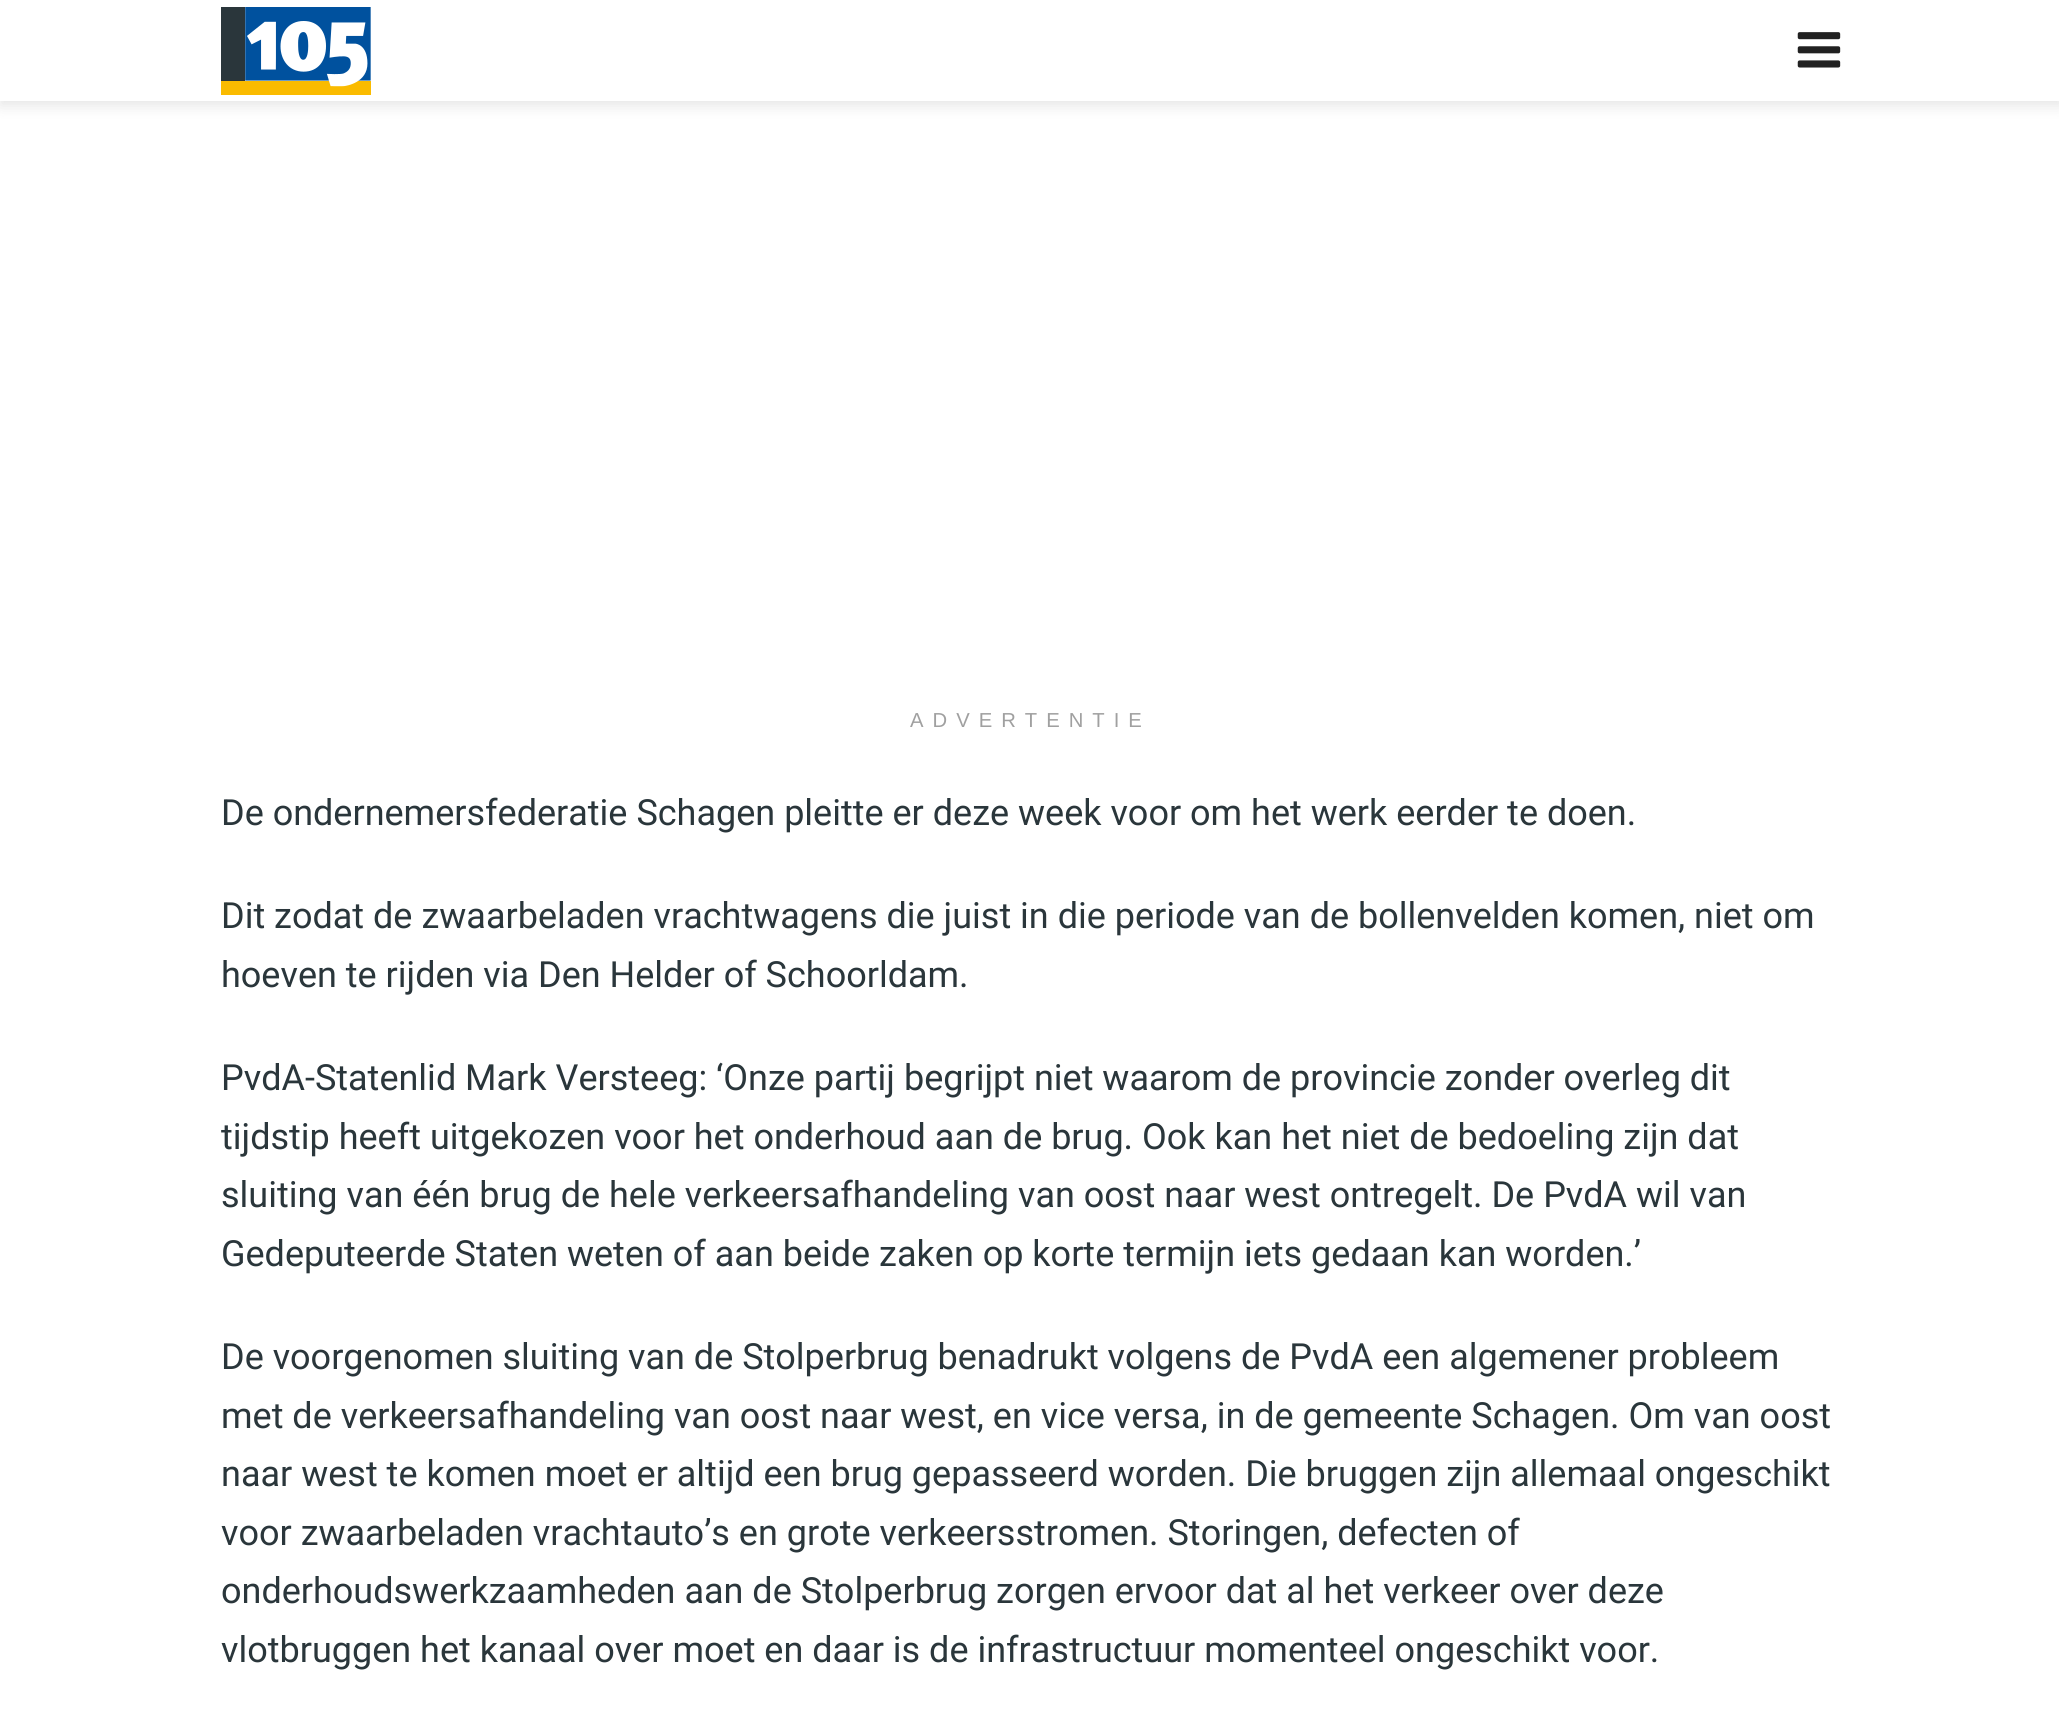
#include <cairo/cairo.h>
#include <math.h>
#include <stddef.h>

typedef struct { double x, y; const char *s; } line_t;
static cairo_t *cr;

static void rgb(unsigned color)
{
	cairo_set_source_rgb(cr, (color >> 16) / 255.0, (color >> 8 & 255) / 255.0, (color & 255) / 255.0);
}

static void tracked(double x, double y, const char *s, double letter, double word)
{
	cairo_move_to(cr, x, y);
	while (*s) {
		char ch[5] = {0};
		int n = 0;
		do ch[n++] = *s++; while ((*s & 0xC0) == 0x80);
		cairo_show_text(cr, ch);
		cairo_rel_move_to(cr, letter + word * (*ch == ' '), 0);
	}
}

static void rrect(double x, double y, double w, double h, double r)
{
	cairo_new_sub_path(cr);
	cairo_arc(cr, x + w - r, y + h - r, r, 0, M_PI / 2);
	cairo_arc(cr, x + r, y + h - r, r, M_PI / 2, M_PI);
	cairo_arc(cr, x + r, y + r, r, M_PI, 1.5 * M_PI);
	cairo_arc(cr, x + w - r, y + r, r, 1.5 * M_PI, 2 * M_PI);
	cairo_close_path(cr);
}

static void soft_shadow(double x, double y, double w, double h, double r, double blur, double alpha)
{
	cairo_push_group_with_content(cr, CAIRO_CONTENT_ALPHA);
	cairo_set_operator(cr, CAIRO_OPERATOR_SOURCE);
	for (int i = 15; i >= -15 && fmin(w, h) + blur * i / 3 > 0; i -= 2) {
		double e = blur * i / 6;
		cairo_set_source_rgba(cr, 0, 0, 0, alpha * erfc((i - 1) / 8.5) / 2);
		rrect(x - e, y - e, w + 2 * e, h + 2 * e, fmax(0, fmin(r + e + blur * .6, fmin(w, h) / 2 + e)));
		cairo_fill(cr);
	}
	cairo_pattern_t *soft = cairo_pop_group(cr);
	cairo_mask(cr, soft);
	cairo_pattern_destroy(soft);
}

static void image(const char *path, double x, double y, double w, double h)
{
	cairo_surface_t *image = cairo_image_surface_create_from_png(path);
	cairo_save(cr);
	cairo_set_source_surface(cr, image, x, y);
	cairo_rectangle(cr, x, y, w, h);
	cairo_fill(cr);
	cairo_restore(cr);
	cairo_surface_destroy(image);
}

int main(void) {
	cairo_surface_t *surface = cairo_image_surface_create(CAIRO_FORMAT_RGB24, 2059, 1731);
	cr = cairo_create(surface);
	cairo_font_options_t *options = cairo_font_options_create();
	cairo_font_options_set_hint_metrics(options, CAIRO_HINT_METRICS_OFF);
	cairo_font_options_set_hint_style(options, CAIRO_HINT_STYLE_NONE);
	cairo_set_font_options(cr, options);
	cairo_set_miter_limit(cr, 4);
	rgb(0xffffff);
	cairo_paint(cr);
	rgb(0x000000);
	soft_shadow(0, 5, 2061, 101, 0, 7, 0.1);
	rgb(0xffffff);
	cairo_rectangle(cr, 0, 0, 2059, 101);
	cairo_fill(cr);
	image("img/1.png", 221, 7, 150, 88);
	image("img/2.png", 1797, 32, 44, 36);
	cairo_select_font_face(cr, "Liberation Sans", CAIRO_FONT_SLANT_NORMAL, CAIRO_FONT_WEIGHT_NORMAL);
	cairo_set_font_size(cr, 20.25);
	rgb(0xa0a0a0);
	tracked(910, 727, "ADVERTENTIE", 9, 0);
	cairo_select_font_face(cr, "Roboto", CAIRO_FONT_SLANT_NORMAL, CAIRO_FONT_WEIGHT_NORMAL);
	cairo_set_font_size(cr, 36);
	rgb(0x2a363b);
	{
		static const line_t items[] = {
			{221, 825, "De ondernemersfederatie Schagen pleitte er deze week voor om het werk eerder te doen."},
			{221, 928, "Dit zodat de zwaarbeladen vrachtwagens die juist in die periode van de bollenvelden komen, niet om"},
			{221, 987, "hoeven te rijden via Den Helder of Schoorldam."},
			{221, 1090, "PvdA-Statenlid Mark Versteeg: ‘Onze partij begrijpt niet waarom de provincie zonder overleg dit"},
			{221, 1149, "tijdstip heeft uitgekozen voor het onderhoud aan de brug. Ook kan het niet de bedoeling zijn dat"},
			{221, 1207, "sluiting van één brug de hele verkeersafhandeling van oost naar west ontregelt. De PvdA wil van"},
			{221, 1266, "Gedeputeerde Staten weten of aan beide zaken op korte termijn iets gedaan kan worden.’"},
			{221, 1369, "De voorgenomen sluiting van de Stolperbrug benadrukt volgens de PvdA een algemener probleem"},
			{221, 1428, "met de verkeersafhandeling van oost naar west, en vice versa, in de gemeente Schagen. Om van oost"},
			{221, 1486, "naar west te komen moet er altijd een brug gepasseerd worden. Die bruggen zijn allemaal ongeschikt"},
			{221, 1545, "voor zwaarbeladen vrachtauto’s en grote verkeersstromen. Storingen, defecten of"},
			{221, 1603, "onderhoudswerkzaamheden aan de Stolperbrug zorgen ervoor dat al het verkeer over deze"},
			{221, 1662, "vlotbruggen het kanaal over moet en daar is de infrastructuur momenteel ongeschikt voor."},
		};
		for (size_t i = 0; i < sizeof items / sizeof *items; i++) {
			cairo_move_to(cr, items[i].x, items[i].y);
			cairo_show_text(cr, items[i].s);
		}
	}
	cairo_surface_write_to_png(surface, "page.png");
	cairo_font_options_destroy(options);
	cairo_destroy(cr);
	cairo_surface_destroy(surface);
	return 0;
}
